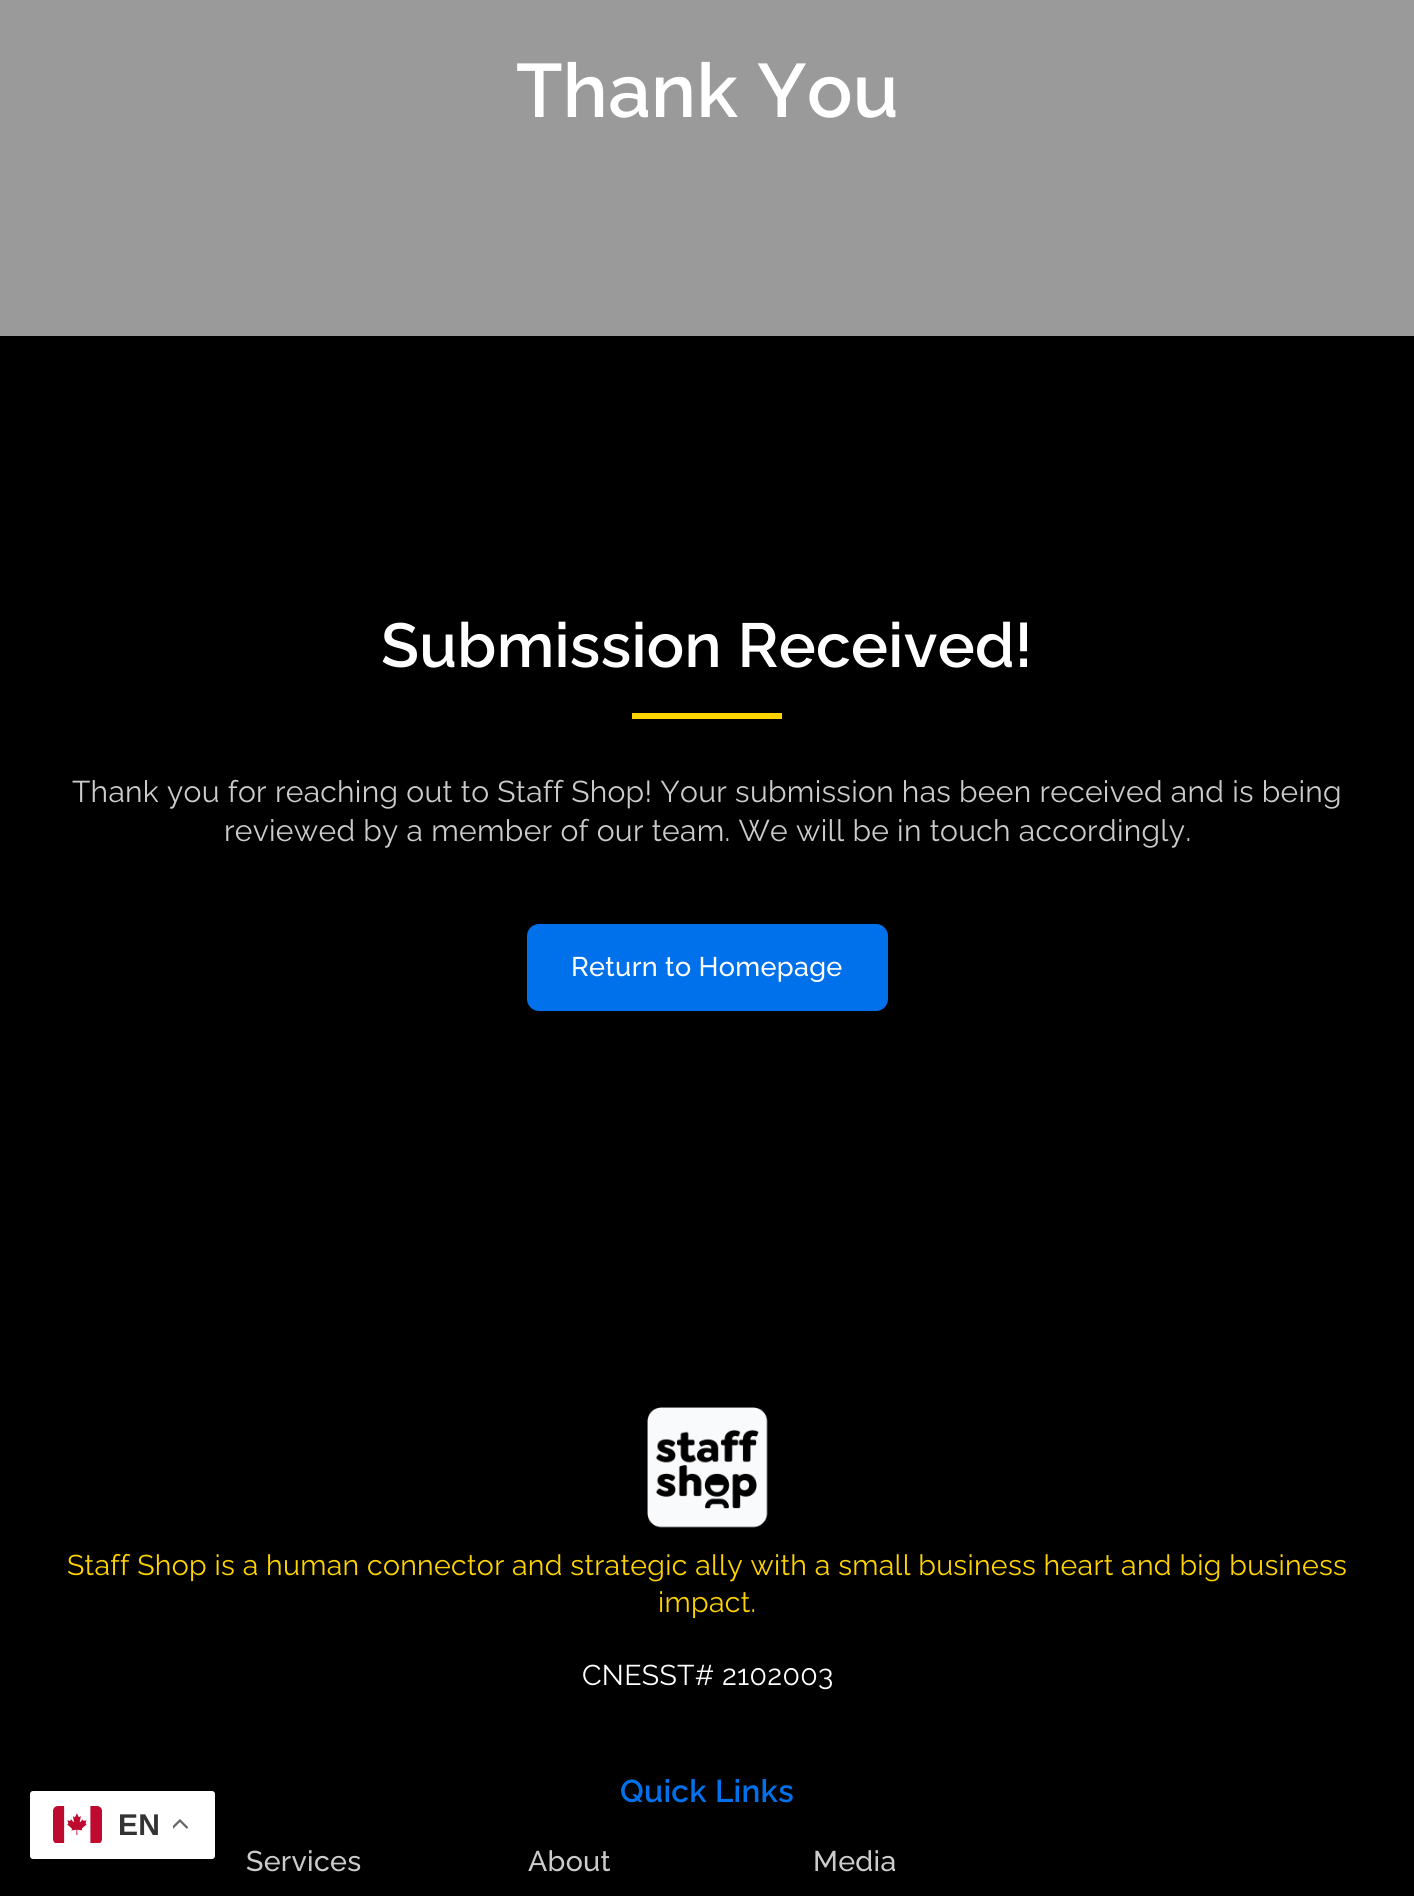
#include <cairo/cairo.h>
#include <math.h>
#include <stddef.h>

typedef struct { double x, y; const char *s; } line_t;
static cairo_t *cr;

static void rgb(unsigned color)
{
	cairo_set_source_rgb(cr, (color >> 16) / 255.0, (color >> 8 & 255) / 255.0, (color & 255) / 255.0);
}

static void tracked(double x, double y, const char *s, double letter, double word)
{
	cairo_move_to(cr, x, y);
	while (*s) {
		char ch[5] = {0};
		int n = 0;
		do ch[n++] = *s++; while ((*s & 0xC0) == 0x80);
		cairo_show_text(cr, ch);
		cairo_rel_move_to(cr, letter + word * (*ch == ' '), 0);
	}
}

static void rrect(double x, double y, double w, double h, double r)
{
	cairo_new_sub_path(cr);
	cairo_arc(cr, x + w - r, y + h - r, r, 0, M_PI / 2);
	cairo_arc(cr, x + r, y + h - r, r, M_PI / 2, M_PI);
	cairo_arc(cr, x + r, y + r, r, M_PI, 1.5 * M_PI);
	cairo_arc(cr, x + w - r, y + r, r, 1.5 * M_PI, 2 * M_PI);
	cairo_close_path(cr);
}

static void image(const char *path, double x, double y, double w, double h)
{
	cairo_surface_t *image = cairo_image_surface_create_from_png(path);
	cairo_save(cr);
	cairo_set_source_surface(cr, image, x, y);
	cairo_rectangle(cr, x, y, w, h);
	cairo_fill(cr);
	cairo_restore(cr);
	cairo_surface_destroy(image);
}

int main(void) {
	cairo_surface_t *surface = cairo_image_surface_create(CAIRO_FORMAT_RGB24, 1414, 1896);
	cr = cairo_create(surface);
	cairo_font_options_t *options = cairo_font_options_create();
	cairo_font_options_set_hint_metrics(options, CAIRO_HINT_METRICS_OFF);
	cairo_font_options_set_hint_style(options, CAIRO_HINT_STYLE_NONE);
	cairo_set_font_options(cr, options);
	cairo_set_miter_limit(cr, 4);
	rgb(0x9a9a9a);
	cairo_paint(cr);
	rgb(0x000000);
	cairo_rectangle(cr, 0, 336, 1414, 1560);
	cairo_fill(cr);
	rgb(0xffd300);
	cairo_rectangle(cr, 632, 713, 150, 6);
	cairo_fill(cr);
	rgb(0x0071eb);
	rrect(529.5, 926.5, 356, 82, 9.5);
	cairo_fill_preserve(cr);
	cairo_set_line_width(cr, 5);
	cairo_stroke(cr);
	image("img/1.png", 647, 1407, 121, 121);
	rgb(0xffffff);
	rrect(30, 1791, 185, 68, 3);
	cairo_fill(cr);
	image("img/2.png", 53, 1806, 49, 37);
	image("img/3.png", 173, 1819, 16, 10);
	cairo_select_font_face(cr, "Raleway SemiBold", CAIRO_FONT_SLANT_NORMAL, CAIRO_FONT_WEIGHT_NORMAL);
	cairo_set_font_size(cr, 75.5);
	tracked(516, 117, "Thank You", 0.3, 0);
	cairo_set_font_size(cr, 62.1);
	tracked(381, 667, "Submission Received!", 0.3, 0);
	cairo_select_font_face(cr, "Raleway", CAIRO_FONT_SLANT_NORMAL, CAIRO_FONT_WEIGHT_NORMAL);
	cairo_set_font_size(cr, 30);
	rgb(0xcbcbcb);
	tracked(72, 802, "Thank you for reaching out to Staff Shop! Your submission has been received and is being", 0.3, 0);
	tracked(224, 841, "reviewed by a member of our team. We will be in touch accordingly.", 0.3, 0);
	cairo_select_font_face(cr, "Raleway Medium", CAIRO_FONT_SLANT_NORMAL, CAIRO_FONT_WEIGHT_NORMAL);
	cairo_set_font_size(cr, 27);
	rgb(0xffffff);
	tracked(571, 976, "Return to Homepage", 0.3, 0);
	cairo_select_font_face(cr, "Raleway", CAIRO_FONT_SLANT_NORMAL, CAIRO_FONT_WEIGHT_NORMAL);
	cairo_set_font_size(cr, 28.5);
	rgb(0xffd300);
	tracked(67, 1575, "Staff Shop is a human connector and strategic ally with a small business heart and big business", 0.3, 0);
	tracked(658, 1612, "impact.", 0.3, 0);
	rgb(0xffffff);
	tracked(582, 1685, "CNESST# 2102003", 0.3, 0);
	cairo_select_font_face(cr, "Raleway SemiBold", CAIRO_FONT_SLANT_NORMAL, CAIRO_FONT_WEIGHT_NORMAL);
	cairo_set_font_size(cr, 31.5);
	rgb(0x0071eb);
	tracked(620, 1802, "Quick Links", 0.3, 0);
	cairo_select_font_face(cr, "Raleway Medium", CAIRO_FONT_SLANT_NORMAL, CAIRO_FONT_WEIGHT_NORMAL);
	cairo_set_font_size(cr, 28.5);
	rgb(0xcbcbcb);
	{
		static const line_t items[] = {
			{246, 1871, "Services"},
			{528, 1871, "About"},
			{813, 1871, "Media"},
		};
		for (size_t i = 0; i < sizeof items / sizeof *items; i++) {
			tracked(items[i].x, items[i].y, items[i].s, 0.3, 0);
		}
	}
	cairo_select_font_face(cr, "Liberation Sans", CAIRO_FONT_SLANT_NORMAL, CAIRO_FONT_WEIGHT_BOLD);
	cairo_set_font_size(cr, 30);
	rgb(0x333333);
	tracked(118, 1835, "EN", 0.3, 0);
	cairo_surface_write_to_png(surface, "page.png");
	cairo_font_options_destroy(options);
	cairo_destroy(cr);
	cairo_surface_destroy(surface);
	return 0;
}
